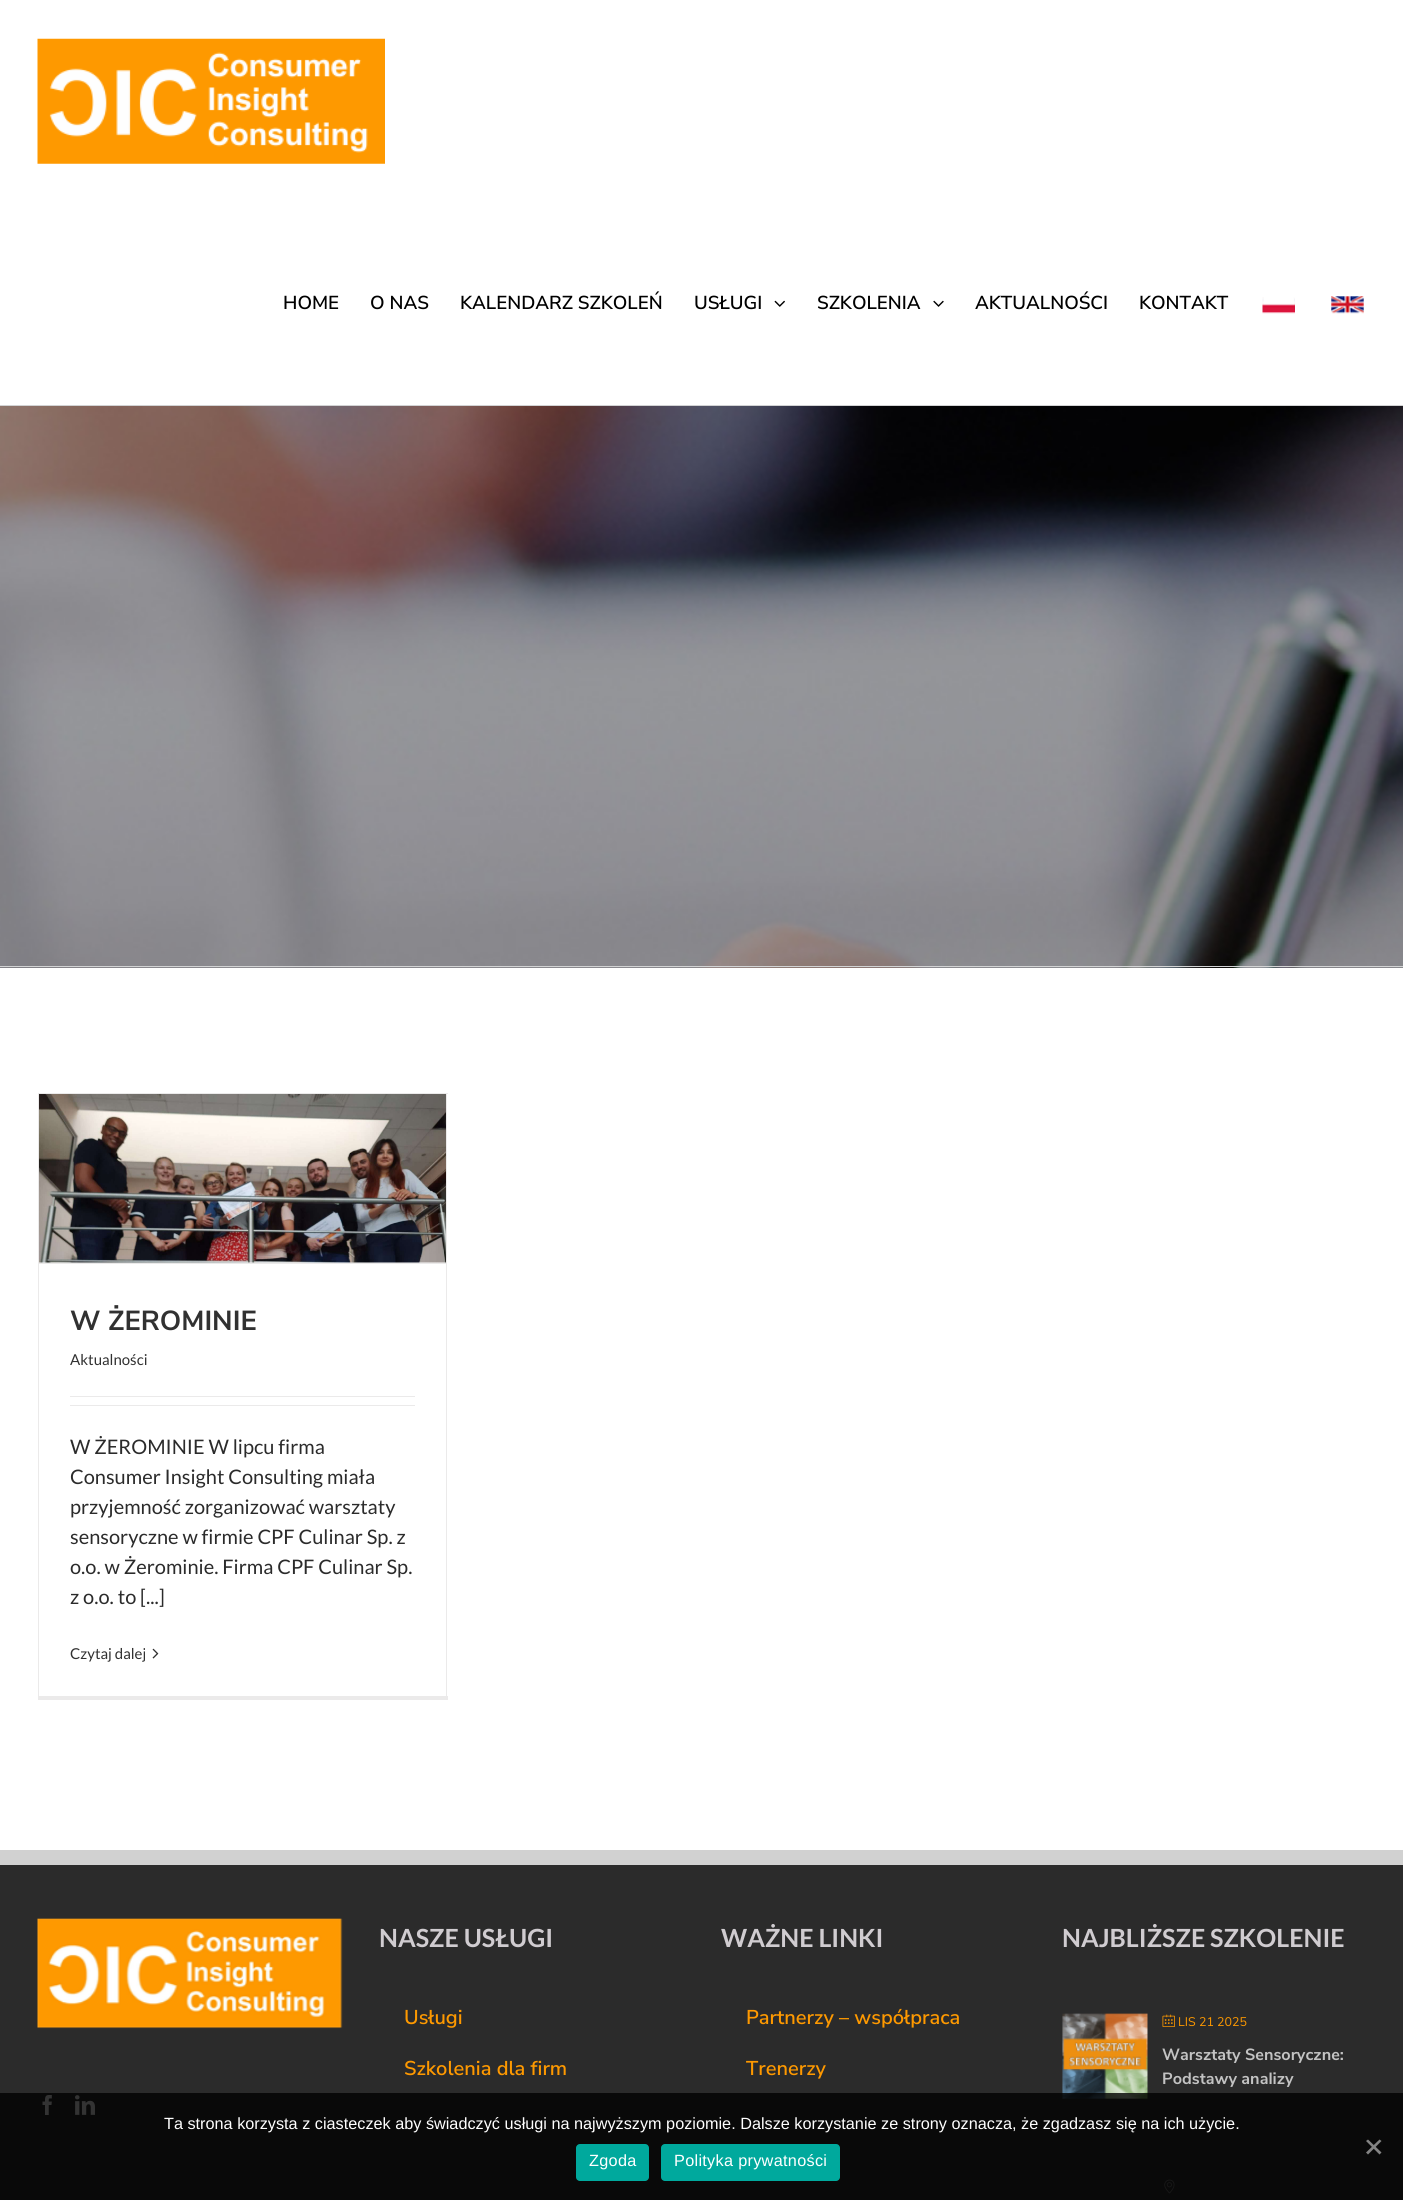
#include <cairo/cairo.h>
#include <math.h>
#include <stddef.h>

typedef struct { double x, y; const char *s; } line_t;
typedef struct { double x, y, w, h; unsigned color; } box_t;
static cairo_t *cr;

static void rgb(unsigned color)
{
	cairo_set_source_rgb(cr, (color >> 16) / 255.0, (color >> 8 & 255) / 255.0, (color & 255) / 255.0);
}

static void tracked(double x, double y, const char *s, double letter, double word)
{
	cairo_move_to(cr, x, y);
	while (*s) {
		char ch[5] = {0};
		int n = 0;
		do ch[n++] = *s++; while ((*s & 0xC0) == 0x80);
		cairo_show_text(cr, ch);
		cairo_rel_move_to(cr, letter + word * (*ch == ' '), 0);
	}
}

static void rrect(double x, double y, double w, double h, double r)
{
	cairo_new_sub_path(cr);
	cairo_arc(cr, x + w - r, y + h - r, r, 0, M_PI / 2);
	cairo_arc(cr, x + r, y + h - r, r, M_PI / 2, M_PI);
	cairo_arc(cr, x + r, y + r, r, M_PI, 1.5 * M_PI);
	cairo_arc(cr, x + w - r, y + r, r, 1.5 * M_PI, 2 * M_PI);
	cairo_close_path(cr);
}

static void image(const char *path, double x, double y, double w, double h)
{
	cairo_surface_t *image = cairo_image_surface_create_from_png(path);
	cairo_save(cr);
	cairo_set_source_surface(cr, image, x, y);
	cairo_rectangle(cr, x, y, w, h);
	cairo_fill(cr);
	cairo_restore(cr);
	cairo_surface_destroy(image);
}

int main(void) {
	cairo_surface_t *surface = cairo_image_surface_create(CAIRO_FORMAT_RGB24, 1403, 2200);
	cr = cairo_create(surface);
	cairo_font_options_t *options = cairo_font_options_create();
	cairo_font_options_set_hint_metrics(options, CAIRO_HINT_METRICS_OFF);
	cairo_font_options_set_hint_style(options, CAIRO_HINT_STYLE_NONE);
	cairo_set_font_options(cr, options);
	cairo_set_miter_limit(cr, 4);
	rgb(0xffffff);
	cairo_paint(cr);
	image("img/1.png", 37, 38, 348, 126);
	image("img/2.png", 774, 300, 11, 7);
	image("img/3.png", 933, 300, 11, 7);
	image("img/4.png", 1262, 297, 33, 17);
	image("img/5.png", 1331, 296, 33, 18);
	image("img/6.png", 0, 406, 1403, 562);
	{
		static const box_t items[] = {
			{0, 405, 1403, 1, 0xd2d3d4},
			{0, 966, 1403, 1, 0xd2d3d4},
			{38, 1093, 410, 1, 0xebeaea},
			{446, 1093, 1, 607, 0xebeaea},
			{38, 1696, 410, 4, 0xebeaea},
			{38, 1093, 1, 607, 0xebeaea},
			{39, 1263, 407, 1, 0xebeaea},
		};
		for (size_t i = 0; i < sizeof items / sizeof *items; i++) {
			rgb(items[i].color);
			cairo_rectangle(cr, items[i].x, items[i].y, items[i].w, items[i].h);
			cairo_fill(cr);
		}
	}
	image("img/7.png", 39, 1094, 407, 169);
	cairo_rectangle(cr, 70, 1396, 345, 1);
	cairo_fill(cr);
	cairo_rectangle(cr, 70, 1405, 345, 1);
	cairo_fill(cr);
	image("img/8.png", 152, 1648, 7, 11);
	rgb(0x2b2b2b);
	cairo_rectangle(cr, 0, 1865, 1403, 335);
	cairo_fill(cr);
	rgb(0xd1d1d1);
	cairo_rectangle(cr, 0, 1850, 1403, 15);
	cairo_fill(cr);
	image("img/9.png", 37, 1918, 306, 111);
	image("img/10.png", 42, 2095, 10, 20);
	image("img/11.png", 75, 2095, 20, 20);
	image("img/12.png", 1062, 2013, 86, 86);
	image("img/13.png", 1162, 2014, 13, 13);
	image("img/14.png", 1164, 2179, 11, 15);
	cairo_set_source_rgba(cr, 0, 0, 0, 0.8);
	cairo_rectangle(cr, 0, 2093, 1403, 107);
	cairo_fill(cr);
	rgb(0x848484);
	cairo_new_path(cr);
	cairo_move_to(cr, 1379.5, 2139.5);
	cairo_line_to(cr, 1381.5, 2141);
	cairo_line_to(cr, 1368, 2154.5);
	cairo_line_to(cr, 1366, 2152.5);
	cairo_close_path(cr);
	cairo_fill(cr);
	cairo_new_path(cr);
	cairo_move_to(cr, 1366, 2141);
	cairo_line_to(cr, 1368, 2139.5);
	cairo_line_to(cr, 1381.5, 2152.5);
	cairo_line_to(cr, 1379.5, 2154.5);
	cairo_close_path(cr);
	cairo_fill(cr);
	rgb(0x00a99d);
	rrect(576, 2144, 73, 37, 4);
	cairo_fill(cr);
	rrect(661, 2144, 179, 37, 4);
	cairo_fill(cr);
	cairo_select_font_face(cr, "Nunito Sans ExtraLight", CAIRO_FONT_SLANT_NORMAL, CAIRO_FONT_WEIGHT_NORMAL);
	cairo_set_font_size(cr, 18.75);
	rgb(0x000000);
	{
		static const line_t items[] = {
			{283, 309, "HOME"},
			{370, 309, "O NAS"},
			{460, 309, "KALENDARZ SZKOLEŃ"},
			{694, 309, "USŁUGI"},
			{817, 309, "SZKOLENIA"},
			{975, 309, "AKTUALNOŚCI"},
			{1139, 309, "KONTAKT"},
		};
		for (size_t i = 0; i < sizeof items / sizeof *items; i++) {
			cairo_move_to(cr, items[i].x, items[i].y);
			cairo_show_text(cr, items[i].s);
		}
	}
	cairo_select_font_face(cr, "Nunito Sans", CAIRO_FONT_SLANT_NORMAL, CAIRO_FONT_WEIGHT_BOLD);
	cairo_set_font_size(cr, 27.5);
	rgb(0x313131);
	cairo_move_to(cr, 70, 1330);
	cairo_show_text(cr, "W ŻEROMINIE");
	cairo_select_font_face(cr, "Lato", CAIRO_FONT_SLANT_NORMAL, CAIRO_FONT_WEIGHT_NORMAL);
	cairo_set_font_size(cr, 15);
	cairo_move_to(cr, 70, 1365);
	cairo_show_text(cr, "Aktualności");
	cairo_set_font_size(cr, 20);
	rgb(0x2b2b2b);
	{
		static const line_t items[] = {
			{70, 1454, "W ŻEROMINIE W lipcu firma"},
			{70, 1484, "Consumer Insight Consulting miała"},
			{70, 1514, "przyjemność zorganizować warsztaty"},
			{70, 1544, "sensoryczne w firmie CPF Culinar Sp. z"},
			{70, 1574, "o.o. w Żerominie. Firma CPF Culinar Sp."},
			{70, 1604, "z o.o. to [...]"},
		};
		for (size_t i = 0; i < sizeof items / sizeof *items; i++) {
			cairo_move_to(cr, items[i].x, items[i].y);
			cairo_show_text(cr, items[i].s);
		}
	}
	cairo_set_font_size(cr, 15);
	rgb(0x313131);
	cairo_move_to(cr, 70, 1659);
	cairo_show_text(cr, "Czytaj dalej");
	cairo_select_font_face(cr, "Lato", CAIRO_FONT_SLANT_NORMAL, CAIRO_FONT_WEIGHT_BOLD);
	cairo_set_font_size(cr, 25);
	rgb(0xd0ccd0);
	cairo_move_to(cr, 379, 1947);
	cairo_show_text(cr, "NASZE USŁUGI");
	cairo_select_font_face(cr, "Nunito Sans ExtraLight", CAIRO_FONT_SLANT_NORMAL, CAIRO_FONT_WEIGHT_NORMAL);
	cairo_set_font_size(cr, 20);
	rgb(0xfe9900);
	cairo_move_to(cr, 404, 2024);
	cairo_show_text(cr, "Usługi");
	cairo_move_to(cr, 404, 2075);
	cairo_show_text(cr, "Szkolenia dla firm");
	cairo_select_font_face(cr, "Lato", CAIRO_FONT_SLANT_NORMAL, CAIRO_FONT_WEIGHT_BOLD);
	cairo_set_font_size(cr, 25);
	rgb(0xd0ccd0);
	cairo_move_to(cr, 721, 1947);
	cairo_show_text(cr, "WAŻNE LINKI");
	cairo_select_font_face(cr, "Nunito Sans ExtraLight", CAIRO_FONT_SLANT_NORMAL, CAIRO_FONT_WEIGHT_NORMAL);
	cairo_set_font_size(cr, 20);
	rgb(0xfe9900);
	cairo_move_to(cr, 746, 2024);
	cairo_show_text(cr, "Partnerzy – współpraca");
	cairo_move_to(cr, 746, 2075);
	cairo_show_text(cr, "Trenerzy");
	cairo_select_font_face(cr, "Lato", CAIRO_FONT_SLANT_NORMAL, CAIRO_FONT_WEIGHT_BOLD);
	cairo_set_font_size(cr, 25);
	rgb(0xd0ccd0);
	cairo_move_to(cr, 1062, 1947);
	cairo_show_text(cr, "NAJBLIŻSZE SZKOLENIE");
	cairo_select_font_face(cr, "Nunito Sans", CAIRO_FONT_SLANT_NORMAL, CAIRO_FONT_WEIGHT_NORMAL);
	cairo_set_font_size(cr, 12.5);
	rgb(0xfe9900);
	cairo_move_to(cr, 1178, 2026);
	cairo_show_text(cr, "LIS 21 2025");
	cairo_select_font_face(cr, "Nunito Sans", CAIRO_FONT_SLANT_NORMAL, CAIRO_FONT_WEIGHT_BOLD);
	cairo_set_font_size(cr, 16.25);
	rgb(0xc3c3c3);
	cairo_move_to(cr, 1162, 2060);
	cairo_show_text(cr, "Warsztaty Sensoryczne:");
	cairo_move_to(cr, 1162, 2084);
	cairo_show_text(cr, "Podstawy analizy");
	cairo_select_font_face(cr, "Liberation Sans", CAIRO_FONT_SLANT_NORMAL, CAIRO_FONT_WEIGHT_NORMAL);
	rgb(0xffffff);
	cairo_move_to(cr, 164, 2129);
	cairo_show_text(cr, "Ta strona korzysta z ciasteczek aby świadczyć usługi na najwyższym poziomie. Dalsze korzystanie ze strony oznacza, że zgadzasz się na ich użycie.");
	tracked(589, 2166, "Zgoda", 0.3, 0);
	tracked(674, 2166, "Polityka prywatności", 0.3, 0);
	cairo_surface_write_to_png(surface, "page.png");
	cairo_font_options_destroy(options);
	cairo_destroy(cr);
	cairo_surface_destroy(surface);
	return 0;
}
